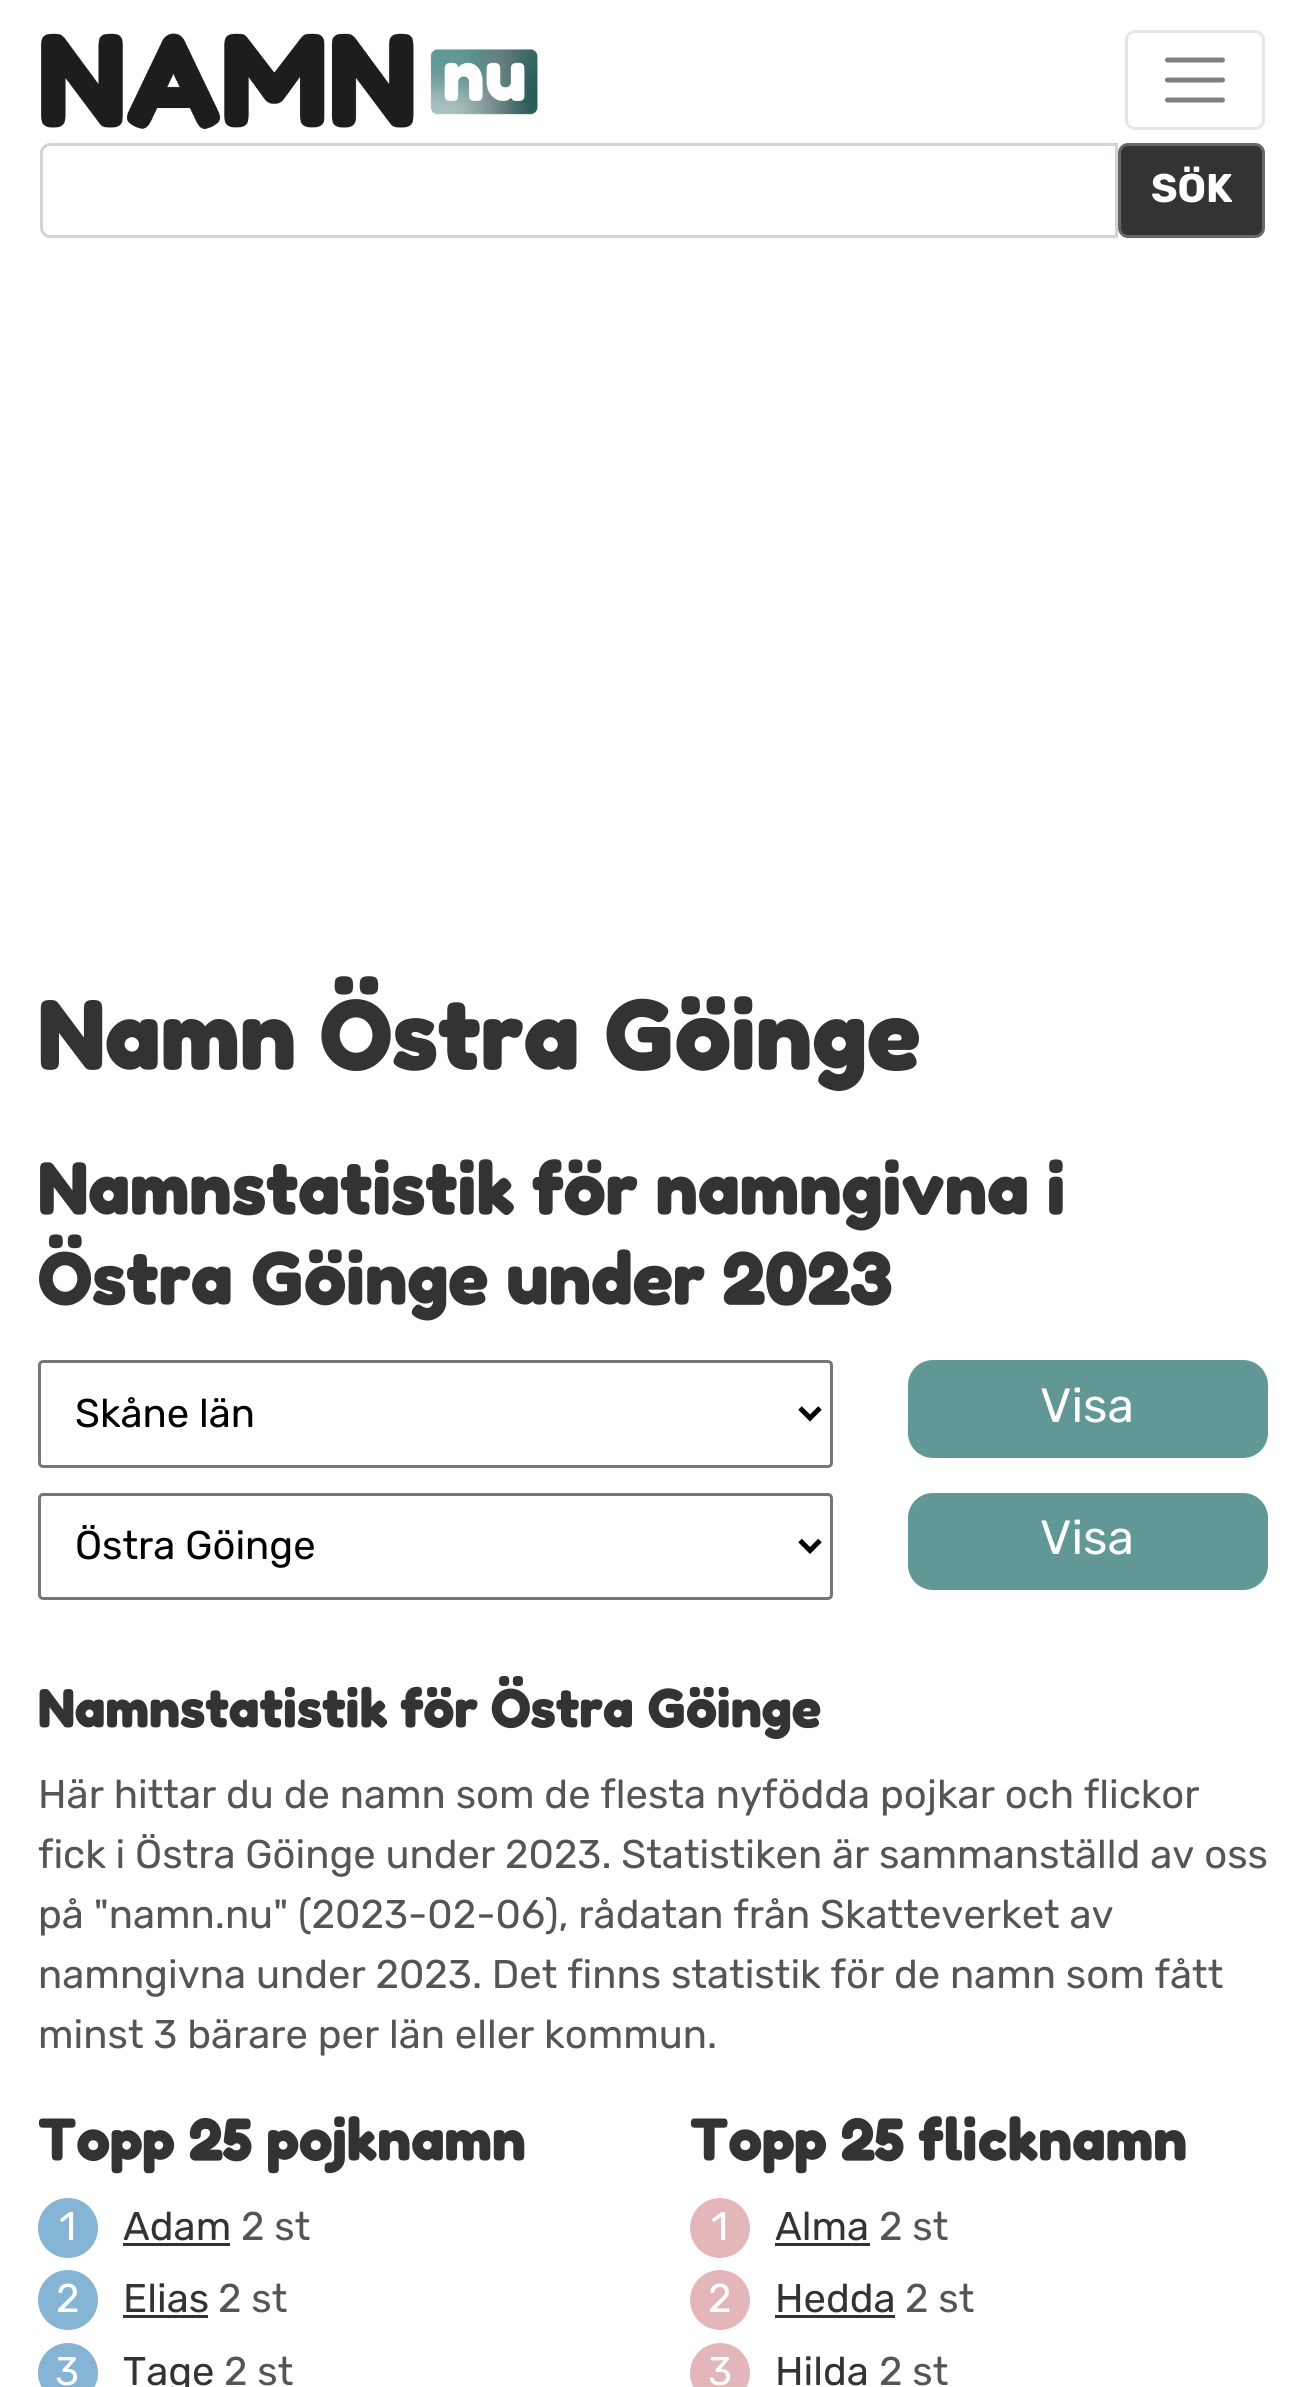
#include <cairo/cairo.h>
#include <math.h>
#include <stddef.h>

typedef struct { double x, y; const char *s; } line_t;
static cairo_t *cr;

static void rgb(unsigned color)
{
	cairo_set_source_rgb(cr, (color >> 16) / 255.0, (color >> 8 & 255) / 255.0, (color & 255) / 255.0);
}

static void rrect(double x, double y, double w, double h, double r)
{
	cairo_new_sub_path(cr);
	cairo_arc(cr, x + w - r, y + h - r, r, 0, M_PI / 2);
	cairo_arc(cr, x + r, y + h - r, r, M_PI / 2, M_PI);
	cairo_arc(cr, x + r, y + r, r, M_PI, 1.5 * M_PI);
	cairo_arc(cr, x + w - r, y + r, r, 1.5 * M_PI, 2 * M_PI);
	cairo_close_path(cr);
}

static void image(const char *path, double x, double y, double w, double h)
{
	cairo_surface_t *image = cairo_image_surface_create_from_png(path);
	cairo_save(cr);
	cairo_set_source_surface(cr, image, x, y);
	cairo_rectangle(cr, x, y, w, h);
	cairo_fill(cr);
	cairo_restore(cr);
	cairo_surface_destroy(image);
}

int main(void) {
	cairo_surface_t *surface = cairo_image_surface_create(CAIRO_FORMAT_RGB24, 1303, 2387);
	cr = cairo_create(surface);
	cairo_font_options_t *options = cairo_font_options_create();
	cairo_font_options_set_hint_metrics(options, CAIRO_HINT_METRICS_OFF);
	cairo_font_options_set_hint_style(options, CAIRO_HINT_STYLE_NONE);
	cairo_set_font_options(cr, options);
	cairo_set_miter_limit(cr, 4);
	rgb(0xffffff);
	cairo_paint(cr);
	image("img/1.png", 41, 33, 497, 96);
	rrect(1126.5, 31.5, 137, 97, 8.5);
	rgb(0xe6e6e6);
	cairo_set_line_width(cr, 3);
	cairo_stroke(cr);
	cairo_new_path(cr);
	cairo_move_to(cr, 1167.5, 60);
	cairo_line_to(cr, 1222.5, 60);
	cairo_move_to(cr, 1167.5, 80);
	cairo_line_to(cr, 1222.5, 80);
	cairo_move_to(cr, 1167.5, 100);
	cairo_line_to(cr, 1222.5, 100);
	rgb(0x808080);
	cairo_set_line_width(cr, 5);
	cairo_set_line_cap(cr, CAIRO_LINE_CAP_ROUND);
	cairo_stroke(cr);
	cairo_new_path(cr);
	cairo_move_to(cr, 50, 144.5);
	cairo_line_to(cr, 1116.5, 144.5);
	cairo_line_to(cr, 1116.5, 236.5);
	cairo_line_to(cr, 50, 236.5);
	cairo_curve_to(cr, 45.5, 236.5, 41.5, 232.5, 41.5, 228);
	cairo_line_to(cr, 41.5, 153);
	cairo_curve_to(cr, 41.5, 148.5, 45.5, 144.5, 50, 144.5);
	cairo_close_path(cr);
	rgb(0xced4da);
	cairo_set_line_width(cr, 3);
	cairo_set_line_cap(cr, CAIRO_LINE_CAP_BUTT);
	cairo_stroke(cr);
	rgb(0x333333);
	rrect(1119.5, 144.5, 144, 92, 8.5);
	cairo_fill_preserve(cr);
	rgb(0x666666);
	cairo_stroke(cr);
	rrect(39.5, 1361.5, 792, 105, 3.5);
	rgb(0x767676);
	cairo_stroke(cr);
	cairo_new_path(cr);
	cairo_move_to(cr, 800, 1408);
	cairo_line_to(cr, 810, 1418);
	cairo_line_to(cr, 820, 1408);
	rgb(0x000000);
	cairo_set_line_width(cr, 5);
	cairo_stroke(cr);
	rgb(0x619895);
	rrect(908, 1360, 360, 98, 25);
	cairo_fill(cr);
	rrect(39.5, 1494.5, 792, 104, 3.5);
	rgb(0x767676);
	cairo_set_line_width(cr, 3);
	cairo_stroke(cr);
	cairo_new_path(cr);
	cairo_move_to(cr, 800, 1540.5);
	cairo_line_to(cr, 810, 1550.5);
	cairo_line_to(cr, 820, 1540.5);
	rgb(0x000000);
	cairo_set_line_width(cr, 5);
	cairo_stroke(cr);
	rgb(0x619895);
	rrect(908, 1493, 360, 97, 25);
	cairo_fill(cr);
	rgb(0x86b4d5);
	cairo_arc(cr, 68, 2228, 30, 0, 2 * M_PI);
	cairo_fill(cr);
	rgb(0x333333);
	cairo_rectangle(cr, 123, 2243, 107, 3);
	cairo_fill(cr);
	rgb(0x86b4d5);
	cairo_arc(cr, 68, 2300, 30, 0, 2 * M_PI);
	cairo_fill(cr);
	rgb(0x333333);
	cairo_rectangle(cr, 123, 2315, 85, 3);
	cairo_fill(cr);
	rgb(0x86b4d5);
	cairo_arc(cr, 68, 2373, 30, 0, 2 * M_PI);
	cairo_fill(cr);
	rgb(0xe3b6ba);
	cairo_arc(cr, 720, 2228, 30, 0, 2 * M_PI);
	cairo_fill(cr);
	rgb(0x333333);
	cairo_rectangle(cr, 775, 2243, 95, 3);
	cairo_fill(cr);
	rgb(0xe3b6ba);
	cairo_arc(cr, 720, 2300, 30, 0, 2 * M_PI);
	cairo_fill(cr);
	rgb(0x333333);
	cairo_rectangle(cr, 775, 2315, 120, 3);
	cairo_fill(cr);
	rgb(0xe3b6ba);
	cairo_arc(cr, 720, 2373, 30, 0, 2 * M_PI);
	cairo_fill(cr);
	cairo_select_font_face(cr, "Rubik", CAIRO_FONT_SLANT_NORMAL, CAIRO_FONT_WEIGHT_BOLD);
	cairo_set_font_size(cr, 40);
	rgb(0xffffff);
	cairo_move_to(cr, 1151, 202);
	cairo_show_text(cr, "SÖK");
	cairo_select_font_face(cr, "Fredoka", CAIRO_FONT_SLANT_NORMAL, CAIRO_FONT_WEIGHT_BOLD);
	cairo_set_font_size(cr, 100);
	rgb(0x333333);
	cairo_move_to(cr, 38, 1069);
	cairo_show_text(cr, "Namn Östra Göinge");
	cairo_set_font_size(cr, 75);
	cairo_move_to(cr, 38, 1214);
	cairo_show_text(cr, "Namnstatistik för namngivna i");
	cairo_move_to(cr, 38, 1304);
	cairo_show_text(cr, "Östra Göinge under 2023");
	cairo_select_font_face(cr, "Rubik", CAIRO_FONT_SLANT_NORMAL, CAIRO_FONT_WEIGHT_NORMAL);
	cairo_set_font_size(cr, 40);
	rgb(0x000000);
	cairo_move_to(cr, 75, 1427);
	cairo_show_text(cr, "Skåne län");
	cairo_set_font_size(cr, 48);
	rgb(0xffffff);
	cairo_move_to(cr, 1040, 1422);
	cairo_show_text(cr, "Visa");
	cairo_set_font_size(cr, 40);
	rgb(0x000000);
	cairo_move_to(cr, 75, 1559);
	cairo_show_text(cr, "Östra Göinge");
	cairo_set_font_size(cr, 48);
	rgb(0xffffff);
	cairo_move_to(cr, 1040, 1554);
	cairo_show_text(cr, "Visa");
	cairo_select_font_face(cr, "Fredoka", CAIRO_FONT_SLANT_NORMAL, CAIRO_FONT_WEIGHT_BOLD);
	cairo_set_font_size(cr, 55);
	rgb(0x333333);
	cairo_move_to(cr, 38, 1727);
	cairo_show_text(cr, "Namnstatistik för Östra Göinge");
	cairo_select_font_face(cr, "Rubik", CAIRO_FONT_SLANT_NORMAL, CAIRO_FONT_WEIGHT_NORMAL);
	cairo_set_font_size(cr, 40);
	rgb(0x555555);
	{
		static const line_t items[] = {
			{38, 1808, "Här hittar du de namn som de flesta nyfödda pojkar och flickor"},
			{38, 1868, "fick i Östra Göinge under 2023. Statistiken är sammanställd av oss"},
			{38, 1928, "på \"namn.nu\" (2023-02-06), rådatan från Skatteverket av"},
			{38, 1988, "namngivna under 2023. Det finns statistik för de namn som fått"},
			{38, 2048, "minst 3 bärare per län eller kommun."},
		};
		for (size_t i = 0; i < sizeof items / sizeof *items; i++) {
			cairo_move_to(cr, items[i].x, items[i].y);
			cairo_show_text(cr, items[i].s);
		}
	}
	cairo_select_font_face(cr, "Fredoka", CAIRO_FONT_SLANT_NORMAL, CAIRO_FONT_WEIGHT_BOLD);
	cairo_set_font_size(cr, 60);
	rgb(0x333333);
	cairo_move_to(cr, 38, 2160);
	cairo_show_text(cr, "Topp 25 pojknamn");
	cairo_select_font_face(cr, "Rubik", CAIRO_FONT_SLANT_NORMAL, CAIRO_FONT_WEIGHT_NORMAL);
	cairo_set_font_size(cr, 40);
	rgb(0xffffff);
	cairo_move_to(cr, 59, 2240);
	cairo_show_text(cr, "1");
	rgb(0x333333);
	cairo_move_to(cr, 123, 2240);
	cairo_show_text(cr, "Adam");
	rgb(0x555555);
	cairo_move_to(cr, 241, 2240);
	cairo_show_text(cr, "2 st");
	rgb(0xffffff);
	cairo_move_to(cr, 56, 2312);
	cairo_show_text(cr, "2");
	rgb(0x333333);
	cairo_move_to(cr, 123, 2312);
	cairo_show_text(cr, "Elias");
	rgb(0x555555);
	cairo_move_to(cr, 218, 2312);
	cairo_show_text(cr, "2 st");
	rgb(0xffffff);
	cairo_move_to(cr, 55, 2385);
	cairo_show_text(cr, "3");
	rgb(0x333333);
	cairo_move_to(cr, 123, 2385);
	cairo_show_text(cr, "Tage");
	rgb(0x555555);
	cairo_move_to(cr, 224, 2385);
	cairo_show_text(cr, "2 st");
	cairo_select_font_face(cr, "Fredoka", CAIRO_FONT_SLANT_NORMAL, CAIRO_FONT_WEIGHT_BOLD);
	cairo_set_font_size(cr, 60);
	rgb(0x333333);
	cairo_move_to(cr, 690, 2160);
	cairo_show_text(cr, "Topp 25 flicknamn");
	cairo_select_font_face(cr, "Rubik", CAIRO_FONT_SLANT_NORMAL, CAIRO_FONT_WEIGHT_NORMAL);
	cairo_set_font_size(cr, 40);
	rgb(0xffffff);
	cairo_move_to(cr, 711, 2240);
	cairo_show_text(cr, "1");
	rgb(0x333333);
	cairo_move_to(cr, 775, 2240);
	cairo_show_text(cr, "Alma");
	rgb(0x555555);
	cairo_move_to(cr, 879, 2240);
	cairo_show_text(cr, "2 st");
	rgb(0xffffff);
	cairo_move_to(cr, 708, 2312);
	cairo_show_text(cr, "2");
	rgb(0x333333);
	cairo_move_to(cr, 775, 2312);
	cairo_show_text(cr, "Hedda");
	rgb(0x555555);
	cairo_move_to(cr, 905, 2312);
	cairo_show_text(cr, "2 st");
	rgb(0xffffff);
	cairo_move_to(cr, 708, 2385);
	cairo_show_text(cr, "3");
	rgb(0x333333);
	cairo_move_to(cr, 775, 2385);
	cairo_show_text(cr, "Hilda");
	rgb(0x555555);
	cairo_move_to(cr, 879, 2385);
	cairo_show_text(cr, "2 st");
	cairo_surface_write_to_png(surface, "page.png");
	cairo_font_options_destroy(options);
	cairo_destroy(cr);
	cairo_surface_destroy(surface);
	return 0;
}
